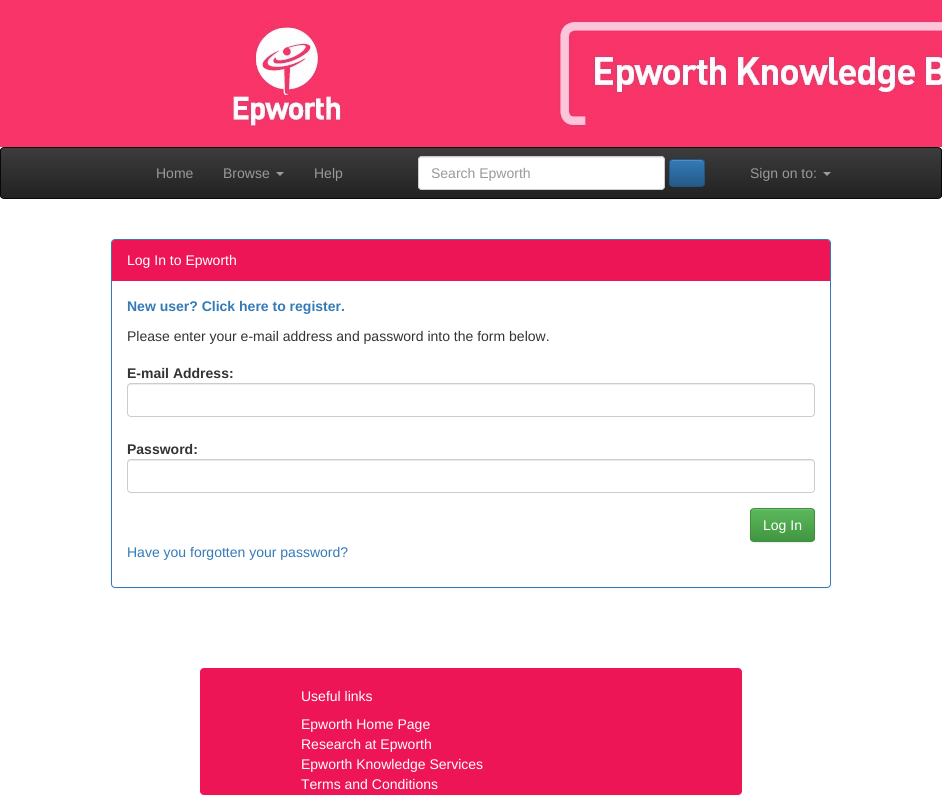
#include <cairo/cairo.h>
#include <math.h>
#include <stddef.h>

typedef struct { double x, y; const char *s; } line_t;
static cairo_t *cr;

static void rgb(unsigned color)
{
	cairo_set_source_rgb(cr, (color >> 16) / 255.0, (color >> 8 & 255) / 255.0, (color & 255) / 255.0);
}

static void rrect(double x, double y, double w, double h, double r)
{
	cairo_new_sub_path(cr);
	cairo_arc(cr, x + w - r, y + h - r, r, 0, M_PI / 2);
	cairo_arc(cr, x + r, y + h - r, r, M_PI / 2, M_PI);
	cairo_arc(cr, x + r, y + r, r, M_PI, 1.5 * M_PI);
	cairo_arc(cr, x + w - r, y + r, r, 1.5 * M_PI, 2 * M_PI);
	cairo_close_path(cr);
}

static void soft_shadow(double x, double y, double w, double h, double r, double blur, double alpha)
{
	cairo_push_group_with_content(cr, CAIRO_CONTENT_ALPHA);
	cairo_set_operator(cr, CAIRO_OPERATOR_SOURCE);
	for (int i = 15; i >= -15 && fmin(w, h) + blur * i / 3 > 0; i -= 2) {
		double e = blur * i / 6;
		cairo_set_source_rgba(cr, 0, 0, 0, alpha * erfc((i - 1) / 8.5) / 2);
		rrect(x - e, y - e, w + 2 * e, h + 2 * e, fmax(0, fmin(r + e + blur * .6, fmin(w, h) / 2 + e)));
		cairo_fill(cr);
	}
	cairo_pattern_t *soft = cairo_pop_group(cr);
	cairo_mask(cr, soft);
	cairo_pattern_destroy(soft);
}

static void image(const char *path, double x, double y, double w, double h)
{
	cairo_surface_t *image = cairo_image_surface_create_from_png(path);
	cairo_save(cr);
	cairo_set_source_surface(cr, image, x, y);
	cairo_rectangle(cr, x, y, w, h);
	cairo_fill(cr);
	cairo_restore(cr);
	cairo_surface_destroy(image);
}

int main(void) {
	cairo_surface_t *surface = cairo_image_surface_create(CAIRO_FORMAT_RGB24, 942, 800);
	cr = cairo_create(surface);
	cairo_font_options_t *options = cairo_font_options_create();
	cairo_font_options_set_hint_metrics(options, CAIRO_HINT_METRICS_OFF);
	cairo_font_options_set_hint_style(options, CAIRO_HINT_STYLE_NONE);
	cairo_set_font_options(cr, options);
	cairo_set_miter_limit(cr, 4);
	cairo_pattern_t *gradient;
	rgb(0xffffff);
	cairo_paint(cr);
	image("img/1.png", 0, 0, 942, 147);
	cairo_save(cr);
	rrect(0, 147, 942, 52, 4);
	cairo_clip(cr);
	gradient = cairo_pattern_create_linear(471, 148, 471, 198);
	cairo_pattern_add_color_stop_rgba(gradient, 0, 0.235, 0.235, 0.235, 1);
	cairo_pattern_add_color_stop_rgba(gradient, 1, 0.133, 0.133, 0.133, 1);
	cairo_set_source(cr, gradient);
	cairo_pattern_destroy(gradient);
	cairo_rectangle(cr, 0, 148, 942, 50);
	cairo_fill(cr);
	cairo_restore(cr);
	rrect(0.5, 147.5, 941, 51, 3.5);
	rgb(0x080808);
	cairo_set_line_width(cr, 1);
	cairo_stroke(cr);
	rgb(0x9d9d9d);
	cairo_new_path(cr);
	cairo_move_to(cr, 276, 172);
	cairo_line_to(cr, 284, 172);
	cairo_line_to(cr, 280, 176);
	cairo_close_path(cr);
	cairo_fill(cr);
	rgb(0xffffff);
	rrect(418, 156, 247, 34, 4);
	cairo_fill(cr);
	rgb(0xececec);
	cairo_new_path(cr);
	cairo_move_to(cr, 422, 158);
	cairo_line_to(cr, 662, 158);
	cairo_line_to(cr, 664, 159);
	cairo_line_to(cr, 664, 161);
	cairo_curve_to(cr, 664, 159, 663, 157, 661, 157);
	cairo_line_to(cr, 422, 157);
	cairo_curve_to(cr, 420, 157, 419, 159, 419, 161);
	cairo_curve_to(cr, 419, 159, 420, 158, 422, 158);
	cairo_close_path(cr);
	cairo_fill(cr);
	rrect(418.5, 156.5, 246, 33, 3.5);
	rgb(0xcccccc);
	cairo_stroke(cr);
	cairo_save(cr);
	rrect(669, 159, 36, 28, 4);
	cairo_clip(cr);
	gradient = cairo_pattern_create_linear(687, 160, 687, 186);
	cairo_pattern_add_color_stop_rgba(gradient, 0, 0.2, 0.478, 0.718, 1);
	cairo_pattern_add_color_stop_rgba(gradient, 1, 0.149, 0.353, 0.533, 1);
	cairo_set_source(cr, gradient);
	cairo_pattern_destroy(gradient);
	cairo_rectangle(cr, 669, 160, 36, 26);
	cairo_fill(cr);
	cairo_restore(cr);
	rgb(0x528dc1);
	cairo_new_path(cr);
	cairo_move_to(cr, 673, 161);
	cairo_line_to(cr, 701, 161);
	cairo_curve_to(cr, 703, 161, 704, 162, 704, 164);
	cairo_curve_to(cr, 704, 159, 700.5, 160, 696.5, 160);
	cairo_line_to(cr, 677.5, 160);
	cairo_curve_to(cr, 673.5, 160, 670, 159, 670, 164);
	cairo_curve_to(cr, 670, 162, 671, 161, 673, 161);
	cairo_close_path(cr);
	cairo_fill(cr);
	rrect(669.5, 159.5, 35, 27, 3.5);
	rgb(0x245580);
	cairo_stroke(cr);
	rgb(0x9d9d9d);
	cairo_new_path(cr);
	cairo_move_to(cr, 823, 172);
	cairo_line_to(cr, 831, 172);
	cairo_line_to(cr, 827, 176);
	cairo_close_path(cr);
	cairo_fill(cr);
	rgb(0x000000);
	soft_shadow(111, 240, 720, 349, 4, 1, 0.05);
	rgb(0xffffff);
	rrect(111.5, 239.5, 719, 348, 3.5);
	cairo_fill_preserve(cr);
	rgb(0x337ab7);
	cairo_stroke(cr);
	rgb(0xed1556);
	cairo_new_path(cr);
	cairo_move_to(cr, 115, 240);
	cairo_line_to(cr, 827, 240);
	cairo_curve_to(cr, 828.5, 240, 830, 241.5, 830, 243);
	cairo_line_to(cr, 830, 281);
	cairo_line_to(cr, 112, 281);
	cairo_line_to(cr, 112, 243);
	cairo_curve_to(cr, 112, 241.5, 113.5, 240, 115, 240);
	cairo_close_path(cr);
	cairo_fill(cr);
	cairo_new_path(cr);
	cairo_move_to(cr, 115, 240);
	cairo_line_to(cr, 827, 240);
	cairo_curve_to(cr, 828.5, 240, 830, 241.5, 830, 243);
	cairo_line_to(cr, 830, 280);
	cairo_line_to(cr, 112, 280);
	cairo_line_to(cr, 112, 243);
	cairo_curve_to(cr, 112, 241.5, 113.5, 240, 115, 240);
	cairo_close_path(cr);
	cairo_fill(cr);
	rgb(0xececec);
	cairo_new_path(cr);
	cairo_move_to(cr, 131, 385);
	cairo_line_to(cr, 811, 385);
	cairo_curve_to(cr, 813, 385, 814, 386, 814, 388);
	cairo_line_to(cr, 814, 387);
	cairo_curve_to(cr, 814, 385, 813, 384, 811, 384);
	cairo_line_to(cr, 131, 384);
	cairo_curve_to(cr, 129, 384, 128, 385, 128, 387);
	cairo_line_to(cr, 128, 388);
	cairo_curve_to(cr, 128, 386, 129, 385, 131, 385);
	cairo_close_path(cr);
	cairo_fill(cr);
	rrect(127.5, 383.5, 687, 33, 3.5);
	rgb(0xcccccc);
	cairo_stroke(cr);
	rgb(0xececec);
	cairo_new_path(cr);
	cairo_move_to(cr, 131, 461);
	cairo_line_to(cr, 811, 461);
	cairo_curve_to(cr, 813, 461, 814, 462, 814, 464);
	cairo_line_to(cr, 814, 463);
	cairo_curve_to(cr, 814, 461, 813, 460, 811, 460);
	cairo_line_to(cr, 131, 460);
	cairo_curve_to(cr, 129, 460, 128, 461, 128, 463);
	cairo_line_to(cr, 128, 464);
	cairo_curve_to(cr, 128, 462, 129, 461, 131, 461);
	cairo_close_path(cr);
	cairo_fill(cr);
	rrect(127.5, 459.5, 687, 33, 3.5);
	rgb(0xcccccc);
	cairo_stroke(cr);
	rgb(0x000000);
	soft_shadow(750, 509, 65, 34, 4, 0.5, 0.07);
	cairo_save(cr);
	rrect(750, 508, 65, 34, 4);
	cairo_clip(cr);
	gradient = cairo_pattern_create_linear(783, 509, 783, 541);
	cairo_pattern_add_color_stop_rgba(gradient, 0, 0.361, 0.722, 0.361, 1);
	cairo_pattern_add_color_stop_rgba(gradient, 1, 0.255, 0.588, 0.255, 1);
	cairo_set_source(cr, gradient);
	cairo_pattern_destroy(gradient);
	cairo_rectangle(cr, 750, 509, 65, 32);
	cairo_fill(cr);
	cairo_restore(cr);
	rgb(0x74c274);
	cairo_new_path(cr);
	cairo_move_to(cr, 754, 510);
	cairo_line_to(cr, 811, 510);
	cairo_curve_to(cr, 813, 510, 814, 511, 814, 513);
	cairo_curve_to(cr, 814, 507, 806, 509, 802, 509);
	cairo_line_to(cr, 764, 509);
	cairo_curve_to(cr, 759, 509, 751, 507, 751, 513);
	cairo_curve_to(cr, 751, 511, 752, 510, 754, 510);
	cairo_close_path(cr);
	cairo_fill(cr);
	rrect(750.5, 508.5, 64, 33, 3.5);
	rgb(0x3e8f3e);
	cairo_stroke(cr);
	rgb(0x000000);
	soft_shadow(200, 669, 542, 127, 4, 1, 0.05);
	rgb(0xed1556);
	rrect(200, 668, 542, 127, 4);
	cairo_fill(cr);
	cairo_select_font_face(cr, "Liberation Sans", CAIRO_FONT_SLANT_NORMAL, CAIRO_FONT_WEIGHT_NORMAL);
	cairo_set_font_size(cr, 14);
	rgb(0x999999);
	{
		static const line_t items[] = {
			{156, 178, "Home"},
			{223, 178, "Browse"},
			{314, 178, "Help"},
			{431, 178, "Search Epworth"},
			{750, 178, "Sign on to:"},
		};
		for (size_t i = 0; i < sizeof items / sizeof *items; i++) {
			cairo_move_to(cr, items[i].x, items[i].y);
			cairo_show_text(cr, items[i].s);
		}
	}
	rgb(0xffffff);
	cairo_move_to(cr, 127, 265);
	cairo_show_text(cr, "Log In to Epworth");
	cairo_select_font_face(cr, "Liberation Sans", CAIRO_FONT_SLANT_NORMAL, CAIRO_FONT_WEIGHT_BOLD);
	rgb(0x337ab7);
	cairo_move_to(cr, 127, 311);
	cairo_show_text(cr, "New user? Click here to register.");
	cairo_select_font_face(cr, "Liberation Sans", CAIRO_FONT_SLANT_NORMAL, CAIRO_FONT_WEIGHT_NORMAL);
	rgb(0x333333);
	cairo_move_to(cr, 127, 341);
	cairo_show_text(cr, "Please enter your e-mail address and password into the form below.");
	cairo_select_font_face(cr, "Liberation Sans", CAIRO_FONT_SLANT_NORMAL, CAIRO_FONT_WEIGHT_BOLD);
	cairo_move_to(cr, 127, 378);
	cairo_show_text(cr, "E-mail Address:");
	cairo_move_to(cr, 127, 454);
	cairo_show_text(cr, "Password:");
	cairo_select_font_face(cr, "Liberation Sans", CAIRO_FONT_SLANT_NORMAL, CAIRO_FONT_WEIGHT_NORMAL);
	rgb(0xffffff);
	cairo_move_to(cr, 763, 530);
	cairo_show_text(cr, "Log In");
	rgb(0x337ab7);
	cairo_move_to(cr, 127, 557);
	cairo_show_text(cr, "Have you forgotten your password?");
	rgb(0xffffff);
	{
		static const line_t items[] = {
			{301, 701, "Useful links"},
			{301, 729, "Epworth Home Page"},
			{301, 749, "Research at Epworth"},
			{301, 769, "Epworth Knowledge Services"},
			{301, 789, "Terms and Conditions"},
		};
		for (size_t i = 0; i < sizeof items / sizeof *items; i++) {
			cairo_move_to(cr, items[i].x, items[i].y);
			cairo_show_text(cr, items[i].s);
		}
	}
	cairo_surface_write_to_png(surface, "page.png");
	cairo_font_options_destroy(options);
	cairo_destroy(cr);
	cairo_surface_destroy(surface);
	return 0;
}
